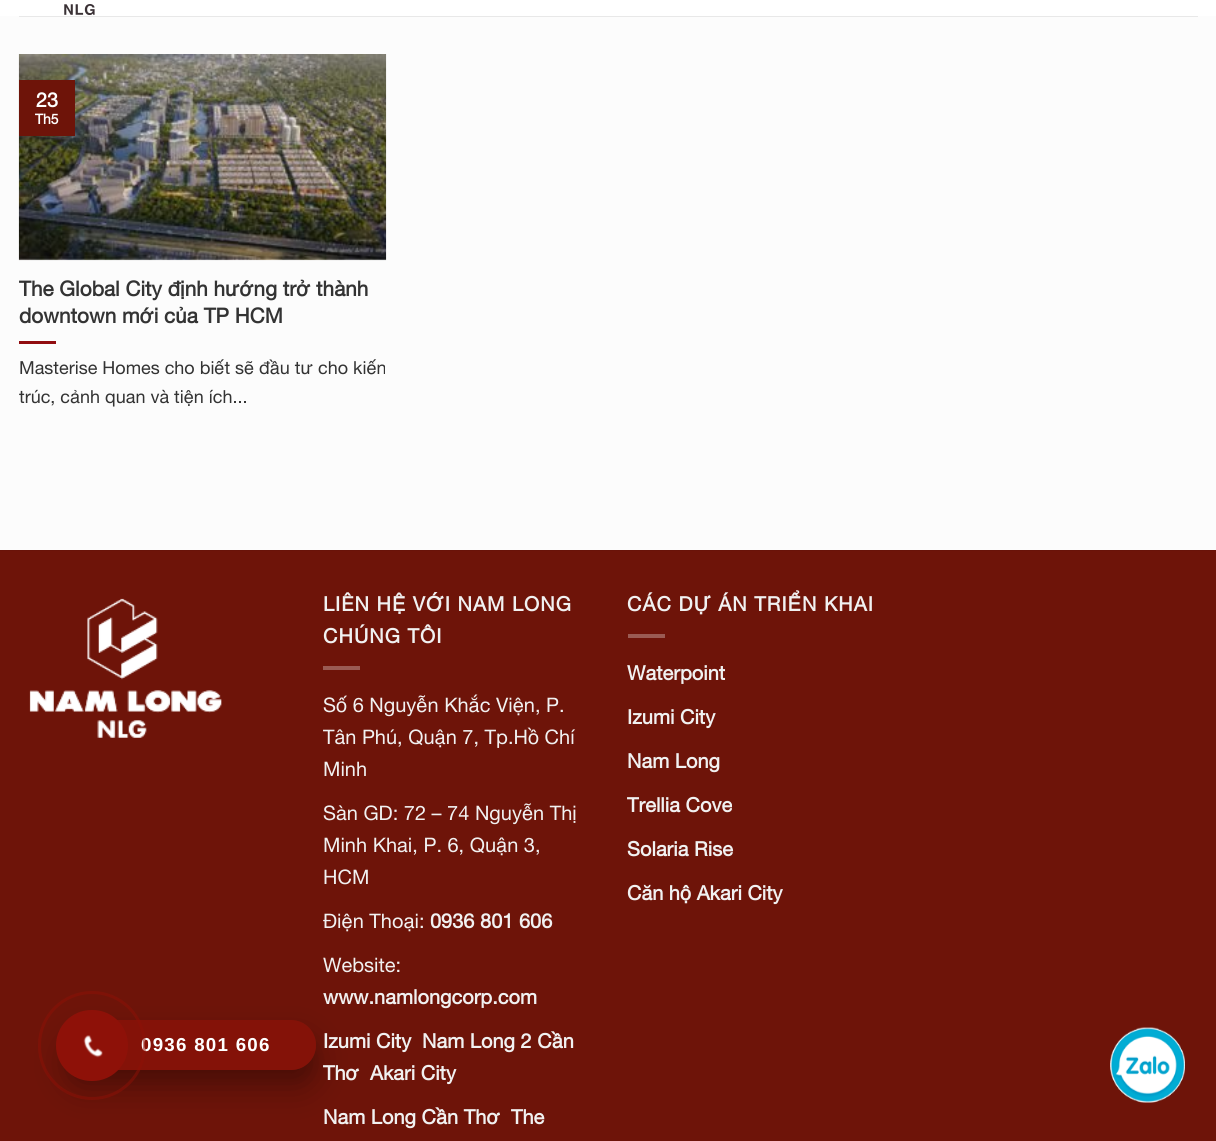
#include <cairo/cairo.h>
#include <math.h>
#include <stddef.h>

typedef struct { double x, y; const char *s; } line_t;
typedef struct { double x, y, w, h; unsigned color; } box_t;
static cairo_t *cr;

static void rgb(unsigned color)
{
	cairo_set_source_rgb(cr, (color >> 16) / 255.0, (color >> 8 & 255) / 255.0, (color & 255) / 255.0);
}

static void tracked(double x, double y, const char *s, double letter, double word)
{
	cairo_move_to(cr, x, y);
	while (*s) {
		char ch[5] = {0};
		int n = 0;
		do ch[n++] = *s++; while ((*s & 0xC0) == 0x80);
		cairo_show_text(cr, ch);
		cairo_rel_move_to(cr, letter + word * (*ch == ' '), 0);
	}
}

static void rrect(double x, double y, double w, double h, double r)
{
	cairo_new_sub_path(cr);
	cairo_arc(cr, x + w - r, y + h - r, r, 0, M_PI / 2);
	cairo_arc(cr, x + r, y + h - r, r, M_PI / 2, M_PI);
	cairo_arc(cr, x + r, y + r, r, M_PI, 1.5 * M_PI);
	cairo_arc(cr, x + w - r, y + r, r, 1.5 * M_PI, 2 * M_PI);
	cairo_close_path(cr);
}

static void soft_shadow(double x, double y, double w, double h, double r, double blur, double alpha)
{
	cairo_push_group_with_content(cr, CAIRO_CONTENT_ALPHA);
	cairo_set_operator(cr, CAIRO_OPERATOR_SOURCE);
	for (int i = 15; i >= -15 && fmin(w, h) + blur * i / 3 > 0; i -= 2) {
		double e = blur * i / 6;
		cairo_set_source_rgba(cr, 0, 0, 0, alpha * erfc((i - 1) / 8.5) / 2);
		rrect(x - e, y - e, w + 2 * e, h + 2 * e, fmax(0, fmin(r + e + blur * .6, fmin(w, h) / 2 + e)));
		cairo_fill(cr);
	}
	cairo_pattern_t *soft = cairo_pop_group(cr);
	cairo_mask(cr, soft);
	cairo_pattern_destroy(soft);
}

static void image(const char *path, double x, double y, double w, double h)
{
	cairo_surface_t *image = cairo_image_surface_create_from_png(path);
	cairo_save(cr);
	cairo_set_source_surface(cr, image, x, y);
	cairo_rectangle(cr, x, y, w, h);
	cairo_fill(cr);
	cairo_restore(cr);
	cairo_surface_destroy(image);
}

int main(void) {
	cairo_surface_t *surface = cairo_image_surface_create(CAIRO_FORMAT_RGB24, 1216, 1141);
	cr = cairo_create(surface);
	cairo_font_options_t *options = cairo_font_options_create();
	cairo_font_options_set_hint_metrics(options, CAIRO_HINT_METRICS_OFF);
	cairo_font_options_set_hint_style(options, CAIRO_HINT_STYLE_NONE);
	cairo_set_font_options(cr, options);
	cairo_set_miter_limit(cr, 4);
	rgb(0xffffff);
	cairo_paint(cr);
	image("img/1.png", 64, 4, 31, 11);
	rgb(0xfcfcfc);
	cairo_rectangle(cr, 0, 16, 1216, 534);
	cairo_fill(cr);
	rgb(0xe8e8e8);
	cairo_rectangle(cr, 19, 16, 1179, 1);
	cairo_fill(cr);
	image("img/2.png", 18, 54, 369, 207);
	{
		static const box_t items[] = {
			{19, 80, 56, 56, 0x6e1409},
			{19, 341, 37, 3, 0x910d10},
			{0, 551, 1216, 590, 0x6e1409},
			{0, 550, 1216, 1, 0x691309},
		};
		for (size_t i = 0; i < sizeof items / sizeof *items; i++) {
			rgb(items[i].color);
			cairo_rectangle(cr, items[i].x, items[i].y, items[i].w, items[i].h);
			cairo_fill(cr);
		}
	}
	image("img/3.png", 29, 598, 193, 140);
	rgb(0x9a5b53);
	cairo_rectangle(cr, 323, 666, 37, 4);
	cairo_fill(cr);
	cairo_rectangle(cr, 628, 634, 37, 4);
	cairo_fill(cr);
	image("img/4.png", 1110, 1027, 75, 76);
	cairo_save(cr);
	cairo_set_fill_rule(cr, CAIRO_FILL_RULE_EVEN_ODD);
	cairo_new_path(cr);
	cairo_move_to(cr, 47, 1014);
	cairo_line_to(cr, 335, 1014);
	cairo_line_to(cr, 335, 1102);
	cairo_line_to(cr, 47, 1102);
	cairo_close_path(cr);
	cairo_move_to(cr, 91, 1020);
	cairo_line_to(cr, 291, 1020);
	cairo_curve_to(cr, 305, 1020, 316, 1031, 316, 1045);
	cairo_curve_to(cr, 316, 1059, 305, 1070, 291, 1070);
	cairo_line_to(cr, 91, 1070);
	cairo_curve_to(cr, 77, 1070, 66, 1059, 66, 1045);
	cairo_curve_to(cr, 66, 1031, 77, 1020, 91, 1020);
	cairo_close_path(cr);
	cairo_clip(cr);
	rgb(0x000000);
	soft_shadow(66, 1033, 250, 50, 25, 6, 0.1);
	cairo_restore(cr);
	cairo_save(cr);
	cairo_set_fill_rule(cr, CAIRO_FILL_RULE_EVEN_ODD);
	cairo_new_path(cr);
	cairo_move_to(cr, 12, 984);
	cairo_line_to(cr, 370, 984);
	cairo_line_to(cr, 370, 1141);
	cairo_line_to(cr, 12, 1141);
	cairo_close_path(cr);
	cairo_move_to(cr, 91, 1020);
	cairo_line_to(cr, 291, 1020);
	cairo_curve_to(cr, 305, 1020, 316, 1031, 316, 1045);
	cairo_curve_to(cr, 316, 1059, 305, 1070, 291, 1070);
	cairo_line_to(cr, 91, 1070);
	cairo_curve_to(cr, 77, 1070, 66, 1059, 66, 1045);
	cairo_curve_to(cr, 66, 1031, 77, 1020, 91, 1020);
	cairo_close_path(cr);
	cairo_clip(cr);
	rgb(0x000000);
	soft_shadow(66, 1038, 250, 50, 25, 17.5, 0.25);
	cairo_restore(cr);
	cairo_set_source_rgba(cr, 0.557, 0.067, 0.031, 0.7);
	rrect(66, 1020, 250, 50, 25);
	cairo_fill(cr);
	cairo_select_font_face(cr, "Helvetica Neue", CAIRO_FONT_SLANT_NORMAL, CAIRO_FONT_WEIGHT_BOLD);
	cairo_set_font_size(cr, 20);
	rgb(0xffffff);
	cairo_move_to(cr, 36, 107);
	cairo_show_text(cr, "23");
	cairo_set_font_size(cr, 14);
	cairo_move_to(cr, 35, 124);
	cairo_show_text(cr, "Th5");
	cairo_set_font_size(cr, 20.75);
	rgb(0x333333);
	cairo_move_to(cr, 19, 296);
	cairo_show_text(cr, "The Global City định hướng trở thành");
	cairo_move_to(cr, 19, 323);
	cairo_show_text(cr, "downtown mới của TP HCM");
	cairo_select_font_face(cr, "Helvetica Neue", CAIRO_FONT_SLANT_NORMAL, CAIRO_FONT_WEIGHT_NORMAL);
	cairo_set_font_size(cr, 18);
	cairo_move_to(cr, 19, 374);
	cairo_show_text(cr, "Masterise Homes cho biết sẽ đầu tư cho kiến");
	cairo_move_to(cr, 19, 403);
	cairo_show_text(cr, "trúc, cảnh quan và tiện ích...");
	cairo_select_font_face(cr, "Helvetica Neue", CAIRO_FONT_SLANT_NORMAL, CAIRO_FONT_WEIGHT_BOLD);
	cairo_set_font_size(cr, 20);
	rgb(0xf1f1f1);
	tracked(323, 611, "LIÊN HỆ VỚI NAM LONG", 1, 0);
	tracked(323, 643, "CHÚNG TÔI", 1, 0);
	cairo_select_font_face(cr, "Helvetica Neue", CAIRO_FONT_SLANT_NORMAL, CAIRO_FONT_WEIGHT_NORMAL);
	{
		static const line_t items[] = {
			{323, 712, "Số 6 Nguyễn Khắc Viện, P."},
			{323, 744, "Tân Phú, Quận 7, Tp.Hồ Chí"},
			{323, 776, "Minh"},
			{323, 820, "Sàn GD: 72 – 74 Nguyễn Thị"},
			{323, 852, "Minh Khai, P. 6, Quận 3,"},
			{323, 884, "HCM"},
			{323, 928, "Điện Thoại:"},
		};
		for (size_t i = 0; i < sizeof items / sizeof *items; i++) {
			cairo_move_to(cr, items[i].x, items[i].y);
			cairo_show_text(cr, items[i].s);
		}
	}
	cairo_select_font_face(cr, "Helvetica Neue", CAIRO_FONT_SLANT_NORMAL, CAIRO_FONT_WEIGHT_BOLD);
	cairo_move_to(cr, 430, 928);
	cairo_show_text(cr, "0936 801 606");
	cairo_select_font_face(cr, "Helvetica Neue", CAIRO_FONT_SLANT_NORMAL, CAIRO_FONT_WEIGHT_NORMAL);
	cairo_move_to(cr, 323, 972);
	cairo_show_text(cr, "Website:");
	cairo_select_font_face(cr, "Helvetica Neue", CAIRO_FONT_SLANT_NORMAL, CAIRO_FONT_WEIGHT_BOLD);
	{
		static const line_t items[] = {
			{323, 1004, "www.namlongcorp.com"},
			{323, 1048, "Izumi City"},
			{422, 1048, "Nam Long 2 Cần"},
			{323, 1080, "Thơ"},
			{370, 1080, "Akari City"},
			{323, 1124, "Nam Long Cần Thơ"},
			{511, 1124, "The"},
		};
		for (size_t i = 0; i < sizeof items / sizeof *items; i++) {
			cairo_move_to(cr, items[i].x, items[i].y);
			cairo_show_text(cr, items[i].s);
		}
	}
	tracked(627, 611, "CÁC DỰ ÁN TRIỂN KHAI", 1, 0);
	{
		static const line_t items[] = {
			{627, 680, "Waterpoint"},
			{627, 724, "Izumi City"},
			{627, 768, "Nam Long"},
			{627, 812, "Trellia Cove"},
			{627, 856, "Solaria Rise"},
			{627, 900, "Căn hộ Akari City"},
		};
		for (size_t i = 0; i < sizeof items / sizeof *items; i++) {
			cairo_move_to(cr, items[i].x, items[i].y);
			cairo_show_text(cr, items[i].s);
		}
	}
	cairo_select_font_face(cr, "Liberation Sans", CAIRO_FONT_SLANT_NORMAL, CAIRO_FONT_WEIGHT_BOLD);
	cairo_set_font_size(cr, 18.75);
	rgb(0xffffff);
	tracked(141, 1051, "0936 801 606", 1.25, 0);
	rrect(39.5, 992.5, 105, 106, 52.5);
	cairo_set_source_rgba(cr, 0.557, 0.067, 0.031, 0.5);
	cairo_set_line_width(cr, 3);
	cairo_stroke(cr);
	rgb(0x8e1108);
	rrect(56, 1010, 72, 71, 35.5);
	cairo_fill(cr);
	image("img/5.png", 83, 1035, 20, 23);
	cairo_surface_write_to_png(surface, "page.png");
	cairo_font_options_destroy(options);
	cairo_destroy(cr);
	cairo_surface_destroy(surface);
	return 0;
}
